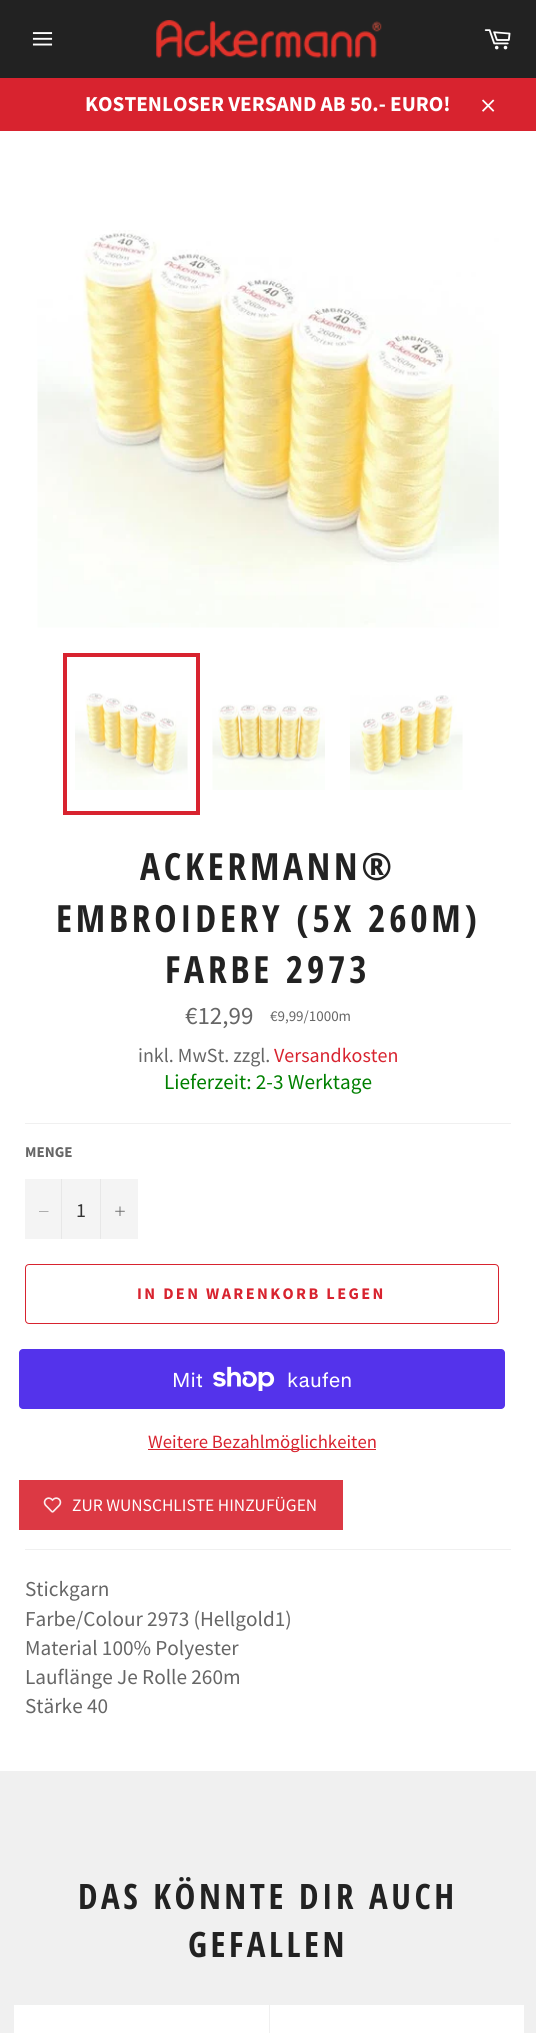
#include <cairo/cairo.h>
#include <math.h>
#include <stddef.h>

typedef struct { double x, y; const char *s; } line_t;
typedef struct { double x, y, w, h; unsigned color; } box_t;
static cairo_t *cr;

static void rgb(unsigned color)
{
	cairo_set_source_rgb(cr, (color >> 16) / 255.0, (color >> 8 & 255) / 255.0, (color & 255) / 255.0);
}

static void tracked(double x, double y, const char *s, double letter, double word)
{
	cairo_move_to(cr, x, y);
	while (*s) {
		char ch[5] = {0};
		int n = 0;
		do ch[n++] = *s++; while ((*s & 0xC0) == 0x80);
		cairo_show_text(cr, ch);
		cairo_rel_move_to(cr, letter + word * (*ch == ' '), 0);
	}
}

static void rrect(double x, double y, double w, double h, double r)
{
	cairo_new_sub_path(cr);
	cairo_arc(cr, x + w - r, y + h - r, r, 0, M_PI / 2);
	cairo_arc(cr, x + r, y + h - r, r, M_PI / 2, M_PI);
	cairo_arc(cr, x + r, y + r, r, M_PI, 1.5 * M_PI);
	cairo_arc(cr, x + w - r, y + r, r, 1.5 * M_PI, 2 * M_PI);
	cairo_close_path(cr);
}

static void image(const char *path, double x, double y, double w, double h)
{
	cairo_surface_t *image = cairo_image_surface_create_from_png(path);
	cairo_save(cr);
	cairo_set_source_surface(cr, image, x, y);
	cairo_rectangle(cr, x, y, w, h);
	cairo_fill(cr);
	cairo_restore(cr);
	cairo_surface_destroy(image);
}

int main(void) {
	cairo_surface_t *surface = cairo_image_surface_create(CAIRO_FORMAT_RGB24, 536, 2033);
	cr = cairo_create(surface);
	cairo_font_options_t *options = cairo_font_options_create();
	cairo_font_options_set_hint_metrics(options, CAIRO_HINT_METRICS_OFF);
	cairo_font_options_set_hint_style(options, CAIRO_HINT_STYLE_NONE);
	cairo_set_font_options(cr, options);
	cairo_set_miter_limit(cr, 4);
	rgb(0x222222);
	cairo_paint(cr);
	image("img/1.png", 32, 32, 21, 14);
	image("img/2.png", 156, 20, 226, 38);
	image("img/3.png", 484, 29, 27, 21);
	rgb(0xd8232f);
	cairo_rectangle(cr, 0, 78, 536, 53);
	cairo_fill(cr);
	image("img/4.png", 482, 99, 13, 13);
	rgb(0xffffff);
	cairo_rectangle(cr, 0, 131, 536, 1640);
	cairo_fill(cr);
	image("img/5.png", 37, 230, 462, 398);
	image("img/6.png", 75, 693, 113, 97);
	cairo_rectangle(cr, 65, 655, 133, 158);
	rgb(0xd8232f);
	cairo_set_line_width(cr, 4);
	cairo_stroke(cr);
	image("img/7.png", 212, 704, 113, 86);
	image("img/8.png", 350, 695, 113, 95);
	{
		static const box_t items[] = {
			{25, 1123, 486, 1, 0xf0f0f0},
			{25, 1179, 113, 60, 0xf4f4f4},
			{61, 1179, 1, 60, 0xe7e7e7},
		};
		for (size_t i = 0; i < sizeof items / sizeof *items; i++) {
			rgb(items[i].color);
			cairo_rectangle(cr, items[i].x, items[i].y, items[i].w, items[i].h);
			cairo_fill(cr);
		}
	}
	rgb(0x666666);
	cairo_set_fill_rule(cr, CAIRO_FILL_RULE_EVEN_ODD);
	cairo_new_path(cr);
	cairo_move_to(cr, 48.5, 1211);
	cairo_line_to(cr, 48.5, 1211.5);
	cairo_line_to(cr, 39, 1211.5);
	cairo_line_to(cr, 39, 1211);
	cairo_close_path(cr);
	cairo_fill(cr);
	rgb(0xe7e7e7);
	cairo_rectangle(cr, 100, 1179, 1, 60);
	cairo_fill(cr);
	image("img/9.png", 115, 1206, 10, 10);
	rrect(25.5, 1264.5, 473, 59, 3.5);
	rgb(0xd8232f);
	cairo_set_line_width(cr, 1);
	cairo_stroke(cr);
	rgb(0x5433eb);
	rrect(19, 1349, 486, 60, 4);
	cairo_fill(cr);
	image("img/10.png", 213, 1366, 62, 25);
	rgb(0xd8232f);
	cairo_rectangle(cr, 148, 1449, 228, 1);
	cairo_fill(cr);
	rgb(0xdc3944);
	cairo_rectangle(cr, 19, 1480, 324, 50);
	cairo_fill(cr);
	image("img/11.png", 43, 1497, 19, 16);
	{
		static const box_t items[] = {
			{25, 1549, 486, 1, 0xf0f0f0},
			{0, 1771, 536, 262, 0xf0f0f0},
			{14, 2005, 510, 28, 0xffffff},
			{269, 2005, 1, 28, 0xf0f0f0},
		};
		for (size_t i = 0; i < sizeof items / sizeof *items; i++) {
			rgb(items[i].color);
			cairo_rectangle(cr, items[i].x, items[i].y, items[i].w, items[i].h);
			cairo_fill(cr);
		}
	}
	cairo_select_font_face(cr, "Source Sans Pro", CAIRO_FONT_SLANT_NORMAL, CAIRO_FONT_WEIGHT_BOLD);
	cairo_set_font_size(cr, 21.25);
	rgb(0xffffff);
	cairo_move_to(cr, 85, 111);
	cairo_show_text(cr, "KOSTENLOSER VERSAND AB 50.- EURO!");
	cairo_select_font_face(cr, "Open Sans Condensed", CAIRO_FONT_SLANT_NORMAL, CAIRO_FONT_WEIGHT_BOLD);
	cairo_set_font_size(cr, 37.5);
	rgb(0x222222);
	{
		static const line_t items[] = {
			{140, 880, "ACKERMANN®"},
			{56, 932, "EMBROIDERY (5X 260M)"},
			{165, 983, "FARBE 2973"},
		};
		for (size_t i = 0; i < sizeof items / sizeof *items; i++) {
			tracked(items[i].x, items[i].y, items[i].s, 3.75, 0);
		}
	}
	cairo_select_font_face(cr, "Source Sans Pro", CAIRO_FONT_SLANT_NORMAL, CAIRO_FONT_WEIGHT_NORMAL);
	cairo_set_font_size(cr, 25);
	rgb(0x666666);
	cairo_move_to(cr, 185, 1024);
	cairo_show_text(cr, "€12,99");
	cairo_set_font_size(cr, 15);
	cairo_move_to(cr, 270, 1021);
	cairo_show_text(cr, "€9,99/1000m");
	cairo_set_font_size(cr, 20);
	cairo_move_to(cr, 138, 1062);
	cairo_show_text(cr, "inkl. MwSt. zzgl.");
	rgb(0xd8232f);
	cairo_move_to(cr, 274, 1062);
	cairo_show_text(cr, "Versandkosten");
	cairo_set_font_size(cr, 21.25);
	rgb(0x008000);
	cairo_move_to(cr, 164, 1089);
	cairo_show_text(cr, "Lieferzeit: 2-3 Werktage");
	cairo_select_font_face(cr, "Source Sans Pro", CAIRO_FONT_SLANT_NORMAL, CAIRO_FONT_WEIGHT_BOLD);
	cairo_set_font_size(cr, 15);
	rgb(0x666666);
	cairo_move_to(cr, 25, 1157);
	cairo_show_text(cr, "MENGE");
	cairo_select_font_face(cr, "Source Sans Pro", CAIRO_FONT_SLANT_NORMAL, CAIRO_FONT_WEIGHT_NORMAL);
	cairo_set_font_size(cr, 20);
	rgb(0x333333);
	cairo_move_to(cr, 76, 1217);
	cairo_show_text(cr, "1");
	cairo_select_font_face(cr, "Source Sans Pro", CAIRO_FONT_SLANT_NORMAL, CAIRO_FONT_WEIGHT_BOLD);
	cairo_set_font_size(cr, 16.25);
	rgb(0xd8232f);
	tracked(137, 1299, "IN DEN WARENKORB LEGEN", 2.4, 0);
	cairo_select_font_face(cr, "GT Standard", CAIRO_FONT_SLANT_NORMAL, CAIRO_FONT_WEIGHT_NORMAL);
	cairo_set_font_size(cr, 20);
	rgb(0xffffff);
	cairo_move_to(cr, 172, 1387);
	cairo_show_text(cr, "Mit");
	cairo_move_to(cr, 287, 1387);
	cairo_show_text(cr, "kaufen");
	cairo_select_font_face(cr, "Source Sans Pro", CAIRO_FONT_SLANT_NORMAL, CAIRO_FONT_WEIGHT_NORMAL);
	cairo_set_font_size(cr, 18.75);
	rgb(0xd8232f);
	cairo_move_to(cr, 148, 1448);
	cairo_show_text(cr, "Weitere Bezahlmöglichkeiten");
	cairo_set_font_size(cr, 17.5);
	rgb(0xffffff);
	cairo_move_to(cr, 72, 1511);
	cairo_show_text(cr, "ZUR WUNSCHLISTE HINZUFÜGEN");
	cairo_set_font_size(cr, 21.25);
	rgb(0x666666);
	{
		static const line_t items[] = {
			{25, 1596, "Stickgarn"},
			{25, 1626, "Farbe/Colour 2973 (Hellgold1)"},
			{25, 1655, "Material 100% Polyester"},
			{25, 1684, "Lauflänge Je Rolle 260m"},
			{25, 1713, "Stärke 40"},
		};
		for (size_t i = 0; i < sizeof items / sizeof *items; i++) {
			cairo_move_to(cr, items[i].x, items[i].y);
			cairo_show_text(cr, items[i].s);
		}
	}
	cairo_select_font_face(cr, "Open Sans Condensed", CAIRO_FONT_SLANT_NORMAL, CAIRO_FONT_WEIGHT_BOLD);
	cairo_set_font_size(cr, 35);
	rgb(0x222222);
	tracked(78, 1909, "DAS KÖNNTE DIR AUCH", 3.5, 0);
	tracked(188, 1957, "GEFALLEN", 3.5, 0);
	cairo_surface_write_to_png(surface, "page.png");
	cairo_font_options_destroy(options);
	cairo_destroy(cr);
	cairo_surface_destroy(surface);
	return 0;
}
